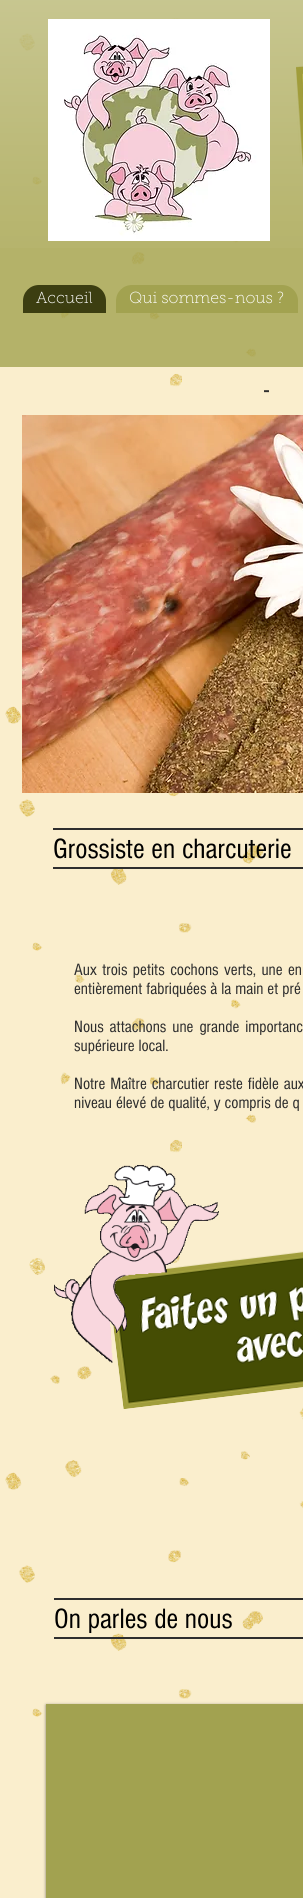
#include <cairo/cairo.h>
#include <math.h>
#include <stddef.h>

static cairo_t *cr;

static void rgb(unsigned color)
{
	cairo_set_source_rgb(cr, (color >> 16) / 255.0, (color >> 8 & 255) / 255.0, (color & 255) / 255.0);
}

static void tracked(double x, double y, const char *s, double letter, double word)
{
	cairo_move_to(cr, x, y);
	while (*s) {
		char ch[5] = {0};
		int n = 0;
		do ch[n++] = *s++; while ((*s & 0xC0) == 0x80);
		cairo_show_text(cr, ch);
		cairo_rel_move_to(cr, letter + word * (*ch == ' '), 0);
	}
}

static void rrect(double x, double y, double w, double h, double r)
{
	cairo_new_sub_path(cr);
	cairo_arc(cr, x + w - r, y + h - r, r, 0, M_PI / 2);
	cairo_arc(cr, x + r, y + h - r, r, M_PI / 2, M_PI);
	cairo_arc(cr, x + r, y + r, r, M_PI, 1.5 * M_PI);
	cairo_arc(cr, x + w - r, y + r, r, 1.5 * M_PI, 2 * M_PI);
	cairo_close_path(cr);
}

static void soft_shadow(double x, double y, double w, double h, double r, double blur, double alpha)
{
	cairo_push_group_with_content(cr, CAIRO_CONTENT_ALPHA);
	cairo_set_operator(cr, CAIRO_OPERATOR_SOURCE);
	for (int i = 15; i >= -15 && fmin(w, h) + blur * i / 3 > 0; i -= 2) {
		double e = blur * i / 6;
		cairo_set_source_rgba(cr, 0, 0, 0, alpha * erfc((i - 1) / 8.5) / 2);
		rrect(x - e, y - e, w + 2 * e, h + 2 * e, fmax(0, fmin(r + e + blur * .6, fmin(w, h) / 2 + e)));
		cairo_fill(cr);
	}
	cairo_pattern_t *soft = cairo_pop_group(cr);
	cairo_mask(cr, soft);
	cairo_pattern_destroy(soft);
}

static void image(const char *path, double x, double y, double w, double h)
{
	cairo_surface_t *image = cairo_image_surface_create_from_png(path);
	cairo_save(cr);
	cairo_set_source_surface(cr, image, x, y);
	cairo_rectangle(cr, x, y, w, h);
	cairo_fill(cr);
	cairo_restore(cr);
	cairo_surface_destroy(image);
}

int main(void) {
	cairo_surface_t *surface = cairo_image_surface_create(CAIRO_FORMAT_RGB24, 303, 1898);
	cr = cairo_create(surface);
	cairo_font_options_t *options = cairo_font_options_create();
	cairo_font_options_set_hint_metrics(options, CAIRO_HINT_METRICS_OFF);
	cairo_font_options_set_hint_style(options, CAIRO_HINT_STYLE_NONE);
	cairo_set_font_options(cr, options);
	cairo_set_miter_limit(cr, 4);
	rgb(0xfaeecd);
	cairo_paint(cr);
	image("img/1.png", 5, 18, 298, 1699);
	cairo_set_source_rgba(cr, 0.635, 0.635, 0.314, 0.8);
	cairo_rectangle(cr, 0, 0, 303, 367);
	cairo_fill(cr);
	image("img/2.png", 0, 0, 303, 248);
	image("img/3.png", 48, 19, 222, 222);
	image("img/4.png", 296, 66, 7, 101);
	cairo_set_source_rgba(cr, 0.153, 0.161, 0.008, 0.85);
	cairo_new_path(cr);
	cairo_move_to(cr, 39, 285);
	cairo_line_to(cr, 90, 285);
	cairo_curve_to(cr, 99, 285, 106, 292, 106, 301);
	cairo_line_to(cr, 106, 313);
	cairo_line_to(cr, 23, 313);
	cairo_line_to(cr, 23, 301);
	cairo_curve_to(cr, 23, 292, 30, 285, 39, 285);
	cairo_close_path(cr);
	cairo_fill(cr);
	rgb(0xa2a250);
	cairo_new_path(cr);
	cairo_move_to(cr, 132, 285);
	cairo_line_to(cr, 282, 285);
	cairo_curve_to(cr, 291, 285, 298, 292, 298, 301);
	cairo_line_to(cr, 298, 313);
	cairo_line_to(cr, 116, 313);
	cairo_line_to(cr, 116, 301);
	cairo_curve_to(cr, 116, 292, 123, 285, 132, 285);
	cairo_close_path(cr);
	cairo_fill(cr);
	image("img/5.png", 22, 415, 281, 378);
	rgb(0x2e2e2e);
	cairo_rectangle(cr, 53, 828, 250, 2);
	cairo_fill(cr);
	cairo_rectangle(cr, 53, 867, 250, 2);
	cairo_fill(cr);
	image("img/7.png", 113, 1251, 190, 158);
	image("img/6.png", 54, 1165, 165, 198);
	cairo_rectangle(cr, 54, 1598, 249, 2);
	cairo_fill(cr);
	cairo_rectangle(cr, 54, 1637, 249, 2);
	cairo_fill(cr);
	rgb(0x000000);
	soft_shadow(46, 1705, 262, 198, 0, 1.5, 0.5);
	rgb(0xa2a250);
	cairo_rectangle(cr, 46, 1704, 257, 194);
	cairo_fill(cr);
	cairo_select_font_face(cr, "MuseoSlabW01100 Thin", CAIRO_FONT_SLANT_NORMAL, CAIRO_FONT_WEIGHT_NORMAL);
	cairo_set_font_size(cr, 16);
	rgb(0xffffff);
	cairo_move_to(cr, 36, 303);
	cairo_show_text(cr, "Accueil");
	cairo_move_to(cr, 129, 303);
	cairo_show_text(cr, "Qui sommes-nous ?");
	cairo_select_font_face(cr, "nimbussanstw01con", CAIRO_FONT_SLANT_NORMAL, CAIRO_FONT_WEIGHT_NORMAL);
	cairo_set_font_size(cr, 28);
	rgb(0x2e2e2e);
	tracked(264, 398, "-", 8, 0);
	cairo_set_font_size(cr, 29);
	rgb(0x000000);
	cairo_move_to(cr, 53, 858);
	cairo_show_text(cr, "Grossiste en charcuterie");
	cairo_set_font_size(cr, 17);
	rgb(0x2e2e2e);
	tracked(74, 975, "Aux trois petits cochons verts, une en", 0, 1.5);
	cairo_move_to(cr, 74, 994);
	cairo_show_text(cr, "entièrement fabriquées à la main et pré");
	tracked(74, 1032, "Nous attachons une grande importanc", 0, 2);
	cairo_move_to(cr, 74, 1051);
	cairo_show_text(cr, "supérieure local.");
	tracked(74, 1089, "Notre Maître charcutier reste fidèle aux", 0, 1);
	cairo_move_to(cr, 74, 1108);
	cairo_show_text(cr, "niveau élevé de qualité, y compris de q");
	cairo_set_font_size(cr, 29);
	rgb(0x000000);
	cairo_move_to(cr, 54, 1628);
	cairo_show_text(cr, "On parles de nous");
	cairo_surface_write_to_png(surface, "page.png");
	cairo_font_options_destroy(options);
	cairo_destroy(cr);
	cairo_surface_destroy(surface);
	return 0;
}
